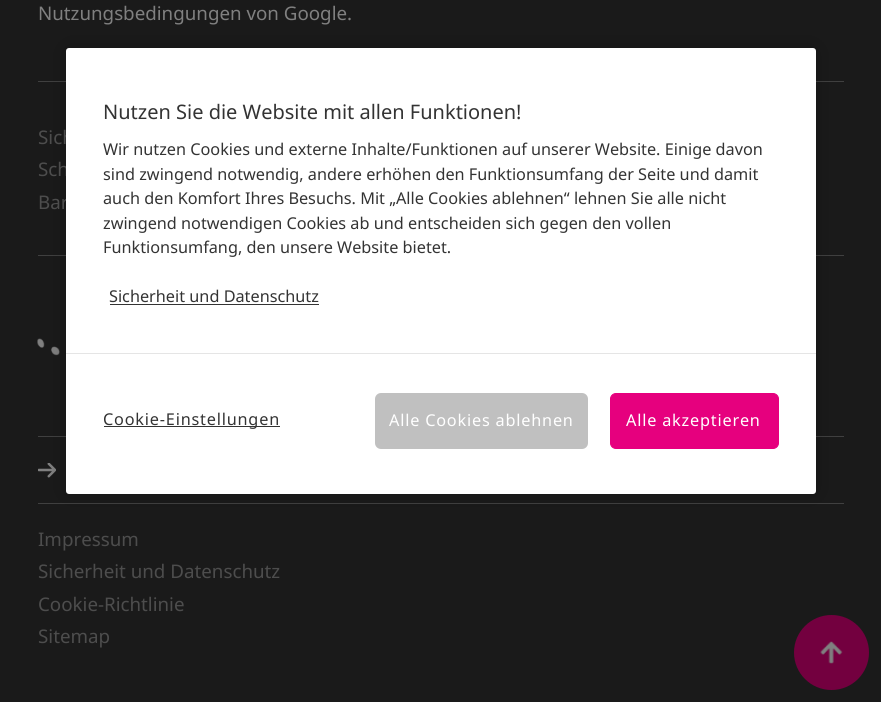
#include <cairo/cairo.h>
#include <math.h>
#include <stddef.h>

typedef struct { double x, y; const char *s; } line_t;
typedef struct { double x, y, w, h; unsigned color; } box_t;
static cairo_t *cr;

static void rgb(unsigned color)
{
	cairo_set_source_rgb(cr, (color >> 16) / 255.0, (color >> 8 & 255) / 255.0, (color & 255) / 255.0);
}

static void tracked(double x, double y, const char *s, double letter, double word)
{
	cairo_move_to(cr, x, y);
	while (*s) {
		char ch[5] = {0};
		int n = 0;
		do ch[n++] = *s++; while ((*s & 0xC0) == 0x80);
		cairo_show_text(cr, ch);
		cairo_rel_move_to(cr, letter + word * (*ch == ' '), 0);
	}
}

static void rrect(double x, double y, double w, double h, double r)
{
	cairo_new_sub_path(cr);
	cairo_arc(cr, x + w - r, y + h - r, r, 0, M_PI / 2);
	cairo_arc(cr, x + r, y + h - r, r, M_PI / 2, M_PI);
	cairo_arc(cr, x + r, y + r, r, M_PI, 1.5 * M_PI);
	cairo_arc(cr, x + w - r, y + r, r, 1.5 * M_PI, 2 * M_PI);
	cairo_close_path(cr);
}

static void soft_shadow(double x, double y, double w, double h, double r, double blur, double alpha)
{
	cairo_push_group_with_content(cr, CAIRO_CONTENT_ALPHA);
	cairo_set_operator(cr, CAIRO_OPERATOR_SOURCE);
	for (int i = 15; i >= -15 && fmin(w, h) + blur * i / 3 > 0; i -= 2) {
		double e = blur * i / 6;
		cairo_set_source_rgba(cr, 0, 0, 0, alpha * erfc((i - 1) / 8.5) / 2);
		rrect(x - e, y - e, w + 2 * e, h + 2 * e, fmax(0, fmin(r + e + blur * .6, fmin(w, h) / 2 + e)));
		cairo_fill(cr);
	}
	cairo_pattern_t *soft = cairo_pop_group(cr);
	cairo_mask(cr, soft);
	cairo_pattern_destroy(soft);
}

static void image(const char *path, double x, double y, double w, double h)
{
	cairo_surface_t *image = cairo_image_surface_create_from_png(path);
	cairo_save(cr);
	cairo_set_source_surface(cr, image, x, y);
	cairo_rectangle(cr, x, y, w, h);
	cairo_fill(cr);
	cairo_restore(cr);
	cairo_surface_destroy(image);
}

int main(void) {
	cairo_surface_t *surface = cairo_image_surface_create(CAIRO_FORMAT_RGB24, 881, 702);
	cr = cairo_create(surface);
	cairo_font_options_t *options = cairo_font_options_create();
	cairo_font_options_set_hint_metrics(options, CAIRO_HINT_METRICS_OFF);
	cairo_font_options_set_hint_style(options, CAIRO_HINT_STYLE_NONE);
	cairo_set_font_options(cr, options);
	cairo_set_miter_limit(cr, 4);
	rgb(0x1a1a1a);
	cairo_paint(cr);
	rgb(0x404040);
	cairo_rectangle(cr, 38, 81, 806, 1);
	cairo_fill(cr);
	cairo_rectangle(cr, 38, 255, 806, 1);
	cairo_fill(cr);
	image("img/1.png", 37, 338, 23, 18);
	cairo_rectangle(cr, 38, 436, 806, 1);
	cairo_fill(cr);
	image("img/2.png", 38, 463, 18, 15);
	cairo_rectangle(cr, 38, 503, 806, 1);
	cairo_fill(cr);
	rgb(0x000000);
	soft_shadow(66, 48, 750, 446, 3, 11, 0.2);
	rgb(0x73003f);
	cairo_arc(cr, 831.5, 652.5, 37.5, 0, 2 * M_PI);
	cairo_fill(cr);
	image("img/3.png", 820, 641, 23, 23);
	cairo_select_font_face(cr, "Noto Sans", CAIRO_FONT_SLANT_NORMAL, CAIRO_FONT_WEIGHT_NORMAL);
	cairo_set_font_size(cr, 18.75);
	rgb(0x808080);
	cairo_move_to(cr, 38, 20);
	cairo_show_text(cr, "Nutzungsbedingungen von Google.");
	rgb(0x4d4d4d);
	{
		static const line_t items[] = {
			{38, 144, "Sich"},
			{38, 176, "Sch"},
			{38, 209, "Bar"},
			{38, 546, "Impressum"},
			{38, 578, "Sicherheit und Datenschutz"},
			{38, 611, "Cookie-Richtlinie"},
			{38, 643, "Sitemap"},
		};
		for (size_t i = 0; i < sizeof items / sizeof *items; i++) {
			cairo_move_to(cr, items[i].x, items[i].y);
			cairo_show_text(cr, items[i].s);
		}
	}
	rgb(0xffffff);
	rrect(66, 48, 750, 446, 3);
	cairo_fill(cr);
	cairo_set_font_size(cr, 20);
	rgb(0x333333);
	cairo_move_to(cr, 103, 119);
	cairo_show_text(cr, "Nutzen Sie die Website mit allen Funktionen!");
	cairo_set_font_size(cr, 16.25);
	{
		static const line_t items[] = {
			{103, 155, "Wir nutzen Cookies und externe Inhalte/Funktionen auf unserer Website. Einige davon"},
			{103, 180, "sind zwingend notwendig, andere erhöhen den Funktionsumfang der Seite und damit"},
			{103, 204, "auch den Komfort Ihres Besuchs. Mit „Alle Cookies ablehnen“ lehnen Sie alle nicht"},
			{103, 229, "zwingend notwendigen Cookies ab und entscheiden sich gegen den vollen"},
			{103, 253, "Funktionsumfang, den unsere Website bietet."},
			{109, 302, "Sicherheit und Datenschutz"},
		};
		for (size_t i = 0; i < sizeof items / sizeof *items; i++) {
			cairo_move_to(cr, items[i].x, items[i].y);
			cairo_show_text(cr, items[i].s);
		}
	}
	{
		static const box_t items[] = {
			{110, 304, 209, 1, 0x333333},
			{66, 353, 750, 1, 0xe5e5e5},
			{104, 426, 176, 1, 0x333333},
		};
		for (size_t i = 0; i < sizeof items / sizeof *items; i++) {
			rgb(items[i].color);
			cairo_rectangle(cr, items[i].x, items[i].y, items[i].w, items[i].h);
			cairo_fill(cr);
		}
	}
	tracked(103, 425, "Cookie-Einstellungen", 0.8, 0);
	rgb(0xc0c0c0);
	rrect(375, 393, 213, 56, 6);
	cairo_fill(cr);
	rgb(0xffffff);
	tracked(389, 426, "Alle Cookies ablehnen", 0.8, 0);
	rgb(0xe6007e);
	rrect(610.5, 393.5, 168, 55, 5.5);
	cairo_fill_preserve(cr);
	cairo_set_line_width(cr, 1);
	cairo_stroke(cr);
	rgb(0xffffff);
	tracked(626, 426, "Alle akzeptieren", 0.8, 0);
	cairo_surface_write_to_png(surface, "page.png");
	cairo_font_options_destroy(options);
	cairo_destroy(cr);
	cairo_surface_destroy(surface);
	return 0;
}
